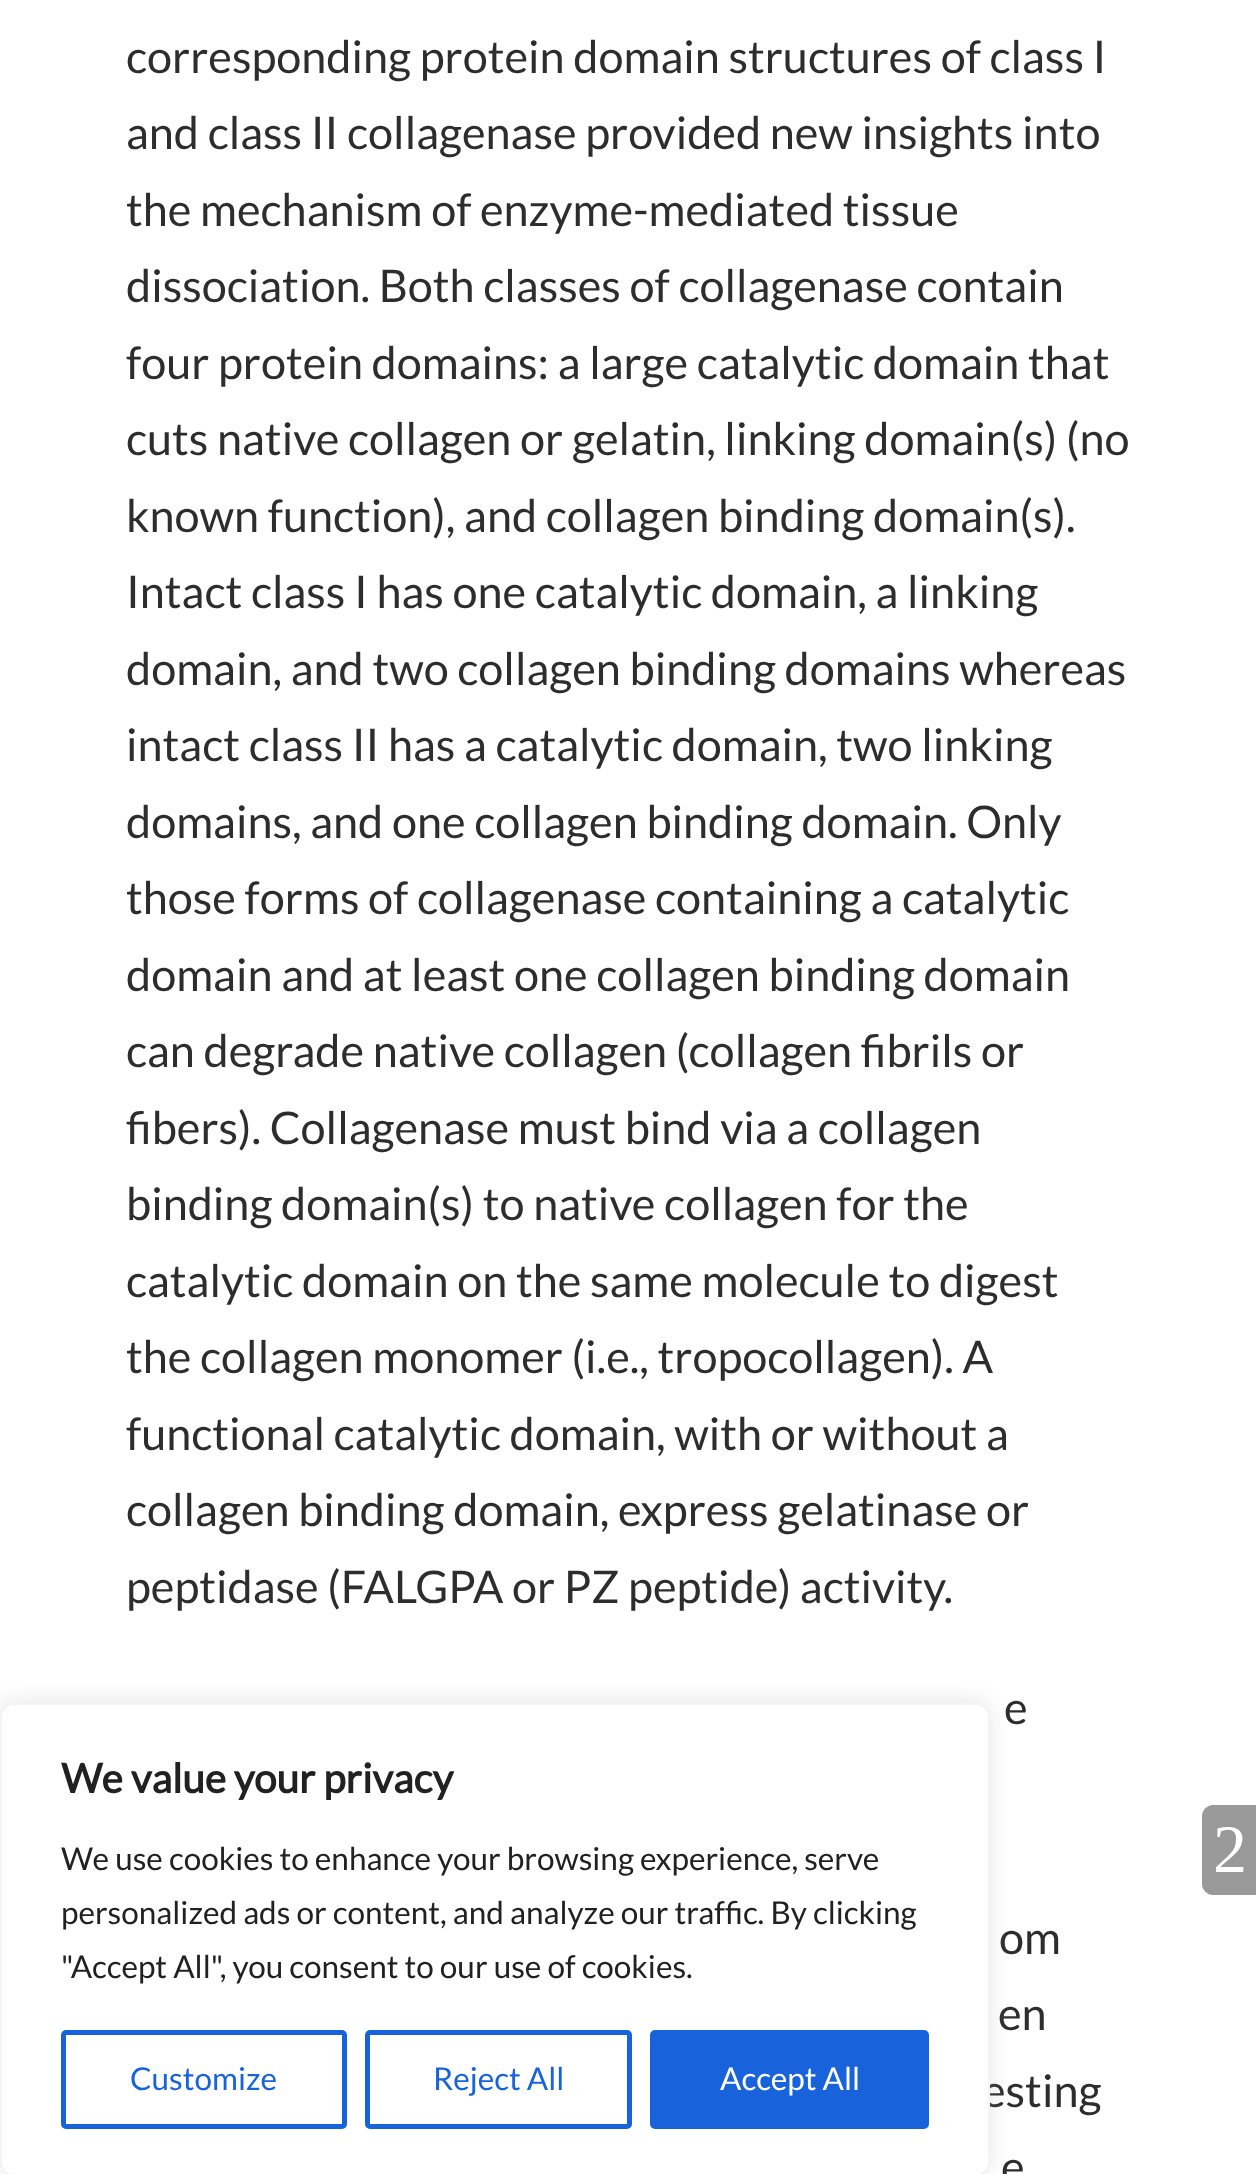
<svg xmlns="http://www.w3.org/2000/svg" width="1256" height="2174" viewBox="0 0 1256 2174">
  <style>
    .t1 { font: 45px Lato; fill: #2d2d2d; }
    .t2 { font: bold 40.5px Lato; fill: #212121; }
    .t3 { font: 31.5px Lato; fill: #212121; }
    .t4 { font: 31.5px Lato; fill: #1863dc; }
    .t5 { font: 31.5px Lato; fill: #fff; }
    .t6 { font: 68px Liberation Serif; fill: #fff; }
  </style>
  <rect width="100%" height="100%" fill="#fff"/>
  <text x="126" y="73" class="t1">corresponding protein domain structures of class I</text>
  <text x="126" y="149" class="t1">and class II collagenase provided new insights into</text>
  <text x="126" y="226" class="t1">the mechanism of enzyme-mediated tissue</text>
  <text x="126" y="302" class="t1">dissociation. Both classes of collagenase contain</text>
  <text x="126" y="379" class="t1">four protein domains: a large catalytic domain that</text>
  <text x="126" y="455" class="t1">cuts native collagen or gelatin, linking domain(s) (no</text>
  <text x="126" y="532" class="t1">known function), and collagen binding domain(s).</text>
  <text x="126" y="608" class="t1">Intact class I has one catalytic domain, a linking</text>
  <text x="126" y="685" class="t1">domain, and two collagen binding domains whereas</text>
  <text x="126" y="761" class="t1">intact class II has a catalytic domain, two linking</text>
  <text x="126" y="838" class="t1">domains, and one collagen binding domain. Only</text>
  <text x="126" y="914" class="t1">those forms of collagenase containing a catalytic</text>
  <text x="126" y="991" class="t1">domain and at least one collagen binding domain</text>
  <text x="126" y="1067" class="t1">can degrade native collagen (collagen fibrils or</text>
  <text x="126" y="1144" class="t1">fibers). Collagenase must bind via a collagen</text>
  <text x="126" y="1220" class="t1">binding domain(s) to native collagen for the</text>
  <text x="126" y="1297" class="t1">catalytic domain on the same molecule to digest</text>
  <text x="126" y="1373" class="t1">the collagen monomer (i.e., tropocollagen). A</text>
  <text x="126" y="1450" class="t1">functional catalytic domain, with or without a</text>
  <text x="126" y="1526" class="t1">collagen binding domain, express gelatinase or</text>
  <text x="126" y="1603" class="t1">peptidase (FALGPA or PZ peptide) activity.</text>
  <text x="1004" y="1724" class="t1">e</text>
  <text x="999" y="1954" class="t1">om</text>
  <text x="998" y="2030" class="t1">en</text>
  <text x="982" y="2107" class="t1">esting</text>
  <text x="1001" y="2183" class="t1">e</text>
  <rect x="0" y="1701" width="990" height="473" rx="14" fill="#acabab4d" filter="blur(11px)"/>
  <rect x="1" y="1704" width="988" height="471" rx="13" fill="#fff" stroke="#f4f4f4" stroke-width="2"/>
  <text x="61" y="1793" class="t2">We value your privacy</text>
  <text x="61" y="1870" class="t3">We use cookies to enhance your browsing experience, serve</text>
  <text x="61" y="1924" class="t3">personalized ads or content, and analyze our traffic. By clicking</text>
  <text x="61" y="1978" class="t3">"Accept All", you consent to our use of cookies.</text>
  <rect x="63.5" y="2032.5" width="281" height="94" rx="2.5" fill="none" stroke="#1863dc" stroke-width="5"/>
  <text x="130" y="2090" class="t4">Customize</text>
  <rect x="367.5" y="2032.5" width="262" height="94" rx="2.5" fill="none" stroke="#1863dc" stroke-width="5"/>
  <text x="433" y="2090" class="t4">Reject All</text>
  <rect x="652.5" y="2032.5" width="274" height="94" rx="2.5" fill="#1863dc" stroke="#1863dc" stroke-width="5"/>
  <text x="720" y="2090" class="t5">Accept All</text>
  <path d="M1213 1805H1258V1895H1213C1207 1895 1202 1890 1202 1884V1816C1202 1810 1207 1805 1213 1805Z" fill="#999"/>
  <text x="1213" y="1872" class="t6">2</text>
</svg>
